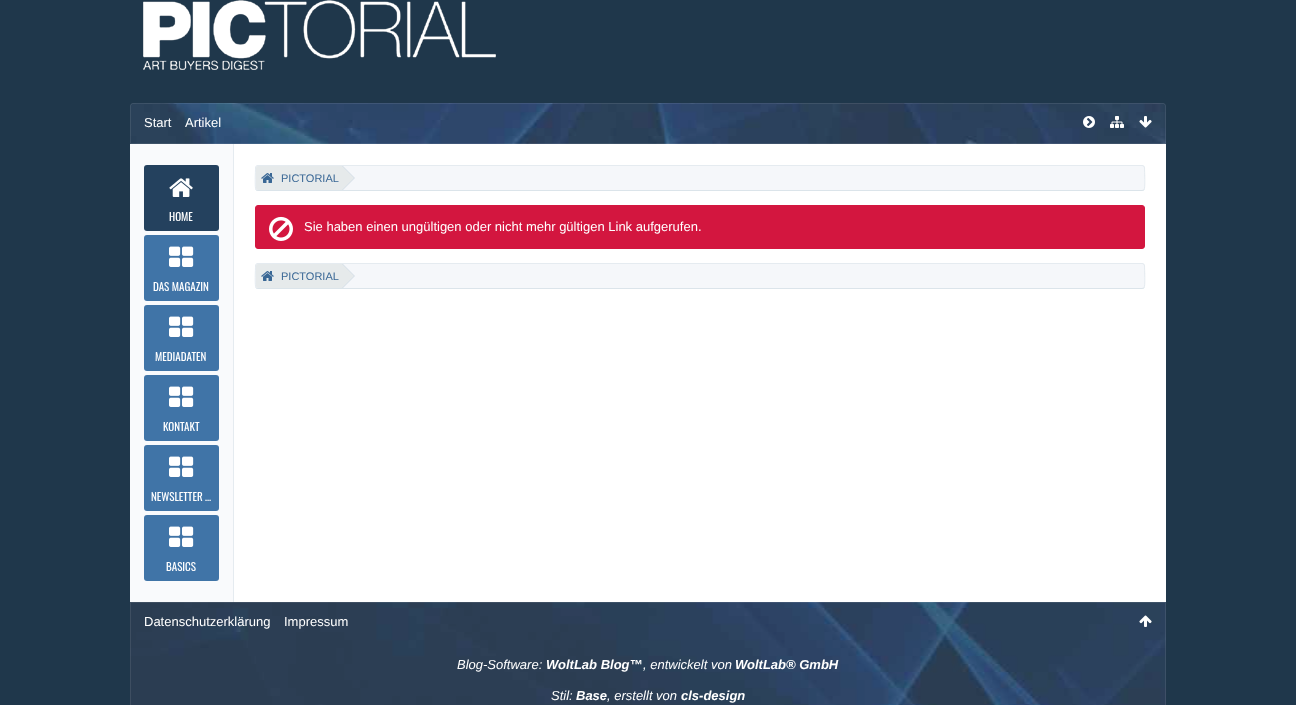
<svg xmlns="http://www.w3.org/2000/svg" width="1296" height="705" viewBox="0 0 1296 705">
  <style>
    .t1 { font: 13px Liberation Sans; fill: #fff; }
    .t2 { font: 11px Oswald; fill: #fff; }
    .t3 { font: 11px Liberation Sans; fill: #396795; }
    .t4 { font: italic 13px Liberation Sans; fill: #fff; }
    .t5 { font: italic bold 13px Liberation Sans; fill: #fff; }
  </style>
  <rect width="100%" height="100%" fill="#1f374b"/>
  <image x="143" y="0" width="353" height="70" href="images/1.png"/>
  <image x="130" y="103" width="1036" height="41" href="images/2.png"/>
  <path d="M133 103H1163C1164.5 103 1166 104.5 1166 106V144H130V106C130 104.5 131.5 103 133 103Z" fill="#ffffff1a"/>
  <path d="M133 103.5H1163C1164.5 103.5 1165.5 104.5 1165.5 106V143.5H130.5V106C130.5 104.5 131.5 103.5 133 103.5Z" fill="none" stroke="#ffffff17"/>
  <text x="144" y="127" class="t1">Start</text>
  <text x="185" y="127" class="t1">Artikel</text>
  <image x="1083" y="116" width="12" height="12" href="images/3.png"/>
  <image x="1110" y="116" width="14" height="12" href="images/4.png"/>
  <image x="1139" y="116" width="13" height="12" href="images/5.png"/>
  <rect x="234" y="144" width="932" height="458" fill="#fff"/>
  <rect x="130" y="144" width="103" height="458" fill="#f9fafc"/>
  <rect x="233" y="144" width="1" height="458" fill="#e5ebf0"/>
  <rect x="144" y="165" width="75" height="66" rx="3" fill="#24415e"/>
  <image x="169" y="178" width="24" height="19" href="images/6.png"/>
  <text x="169" y="221" class="t2">HOME</text>
  <rect x="144" y="235" width="75" height="66" rx="3" fill="#4074a7"/>
  <image x="169" y="246" width="25" height="21" href="images/7.png"/>
  <text x="153" y="291" class="t2">DAS MAGAZIN</text>
  <rect x="144" y="305" width="75" height="66" rx="3" fill="#4074a7"/>
  <image x="169" y="316" width="25" height="21" href="images/7.png"/>
  <text x="155" y="361" class="t2">MEDIADATEN</text>
  <rect x="144" y="375" width="75" height="66" rx="3" fill="#4074a7"/>
  <image x="169" y="386" width="25" height="21" href="images/7.png"/>
  <text x="163" y="431" class="t2">KONTAKT</text>
  <rect x="144" y="445" width="75" height="66" rx="3" fill="#4074a7"/>
  <image x="169" y="456" width="25" height="21" href="images/7.png"/>
  <text x="151" y="501" class="t2">NEWSLETTER …</text>
  <rect x="144" y="515" width="75" height="66" rx="3" fill="#4074a7"/>
  <image x="169" y="526" width="25" height="21" href="images/7.png"/>
  <text x="166" y="571" class="t2">BASICS</text>
  <rect x="255" y="165" width="890" height="26" rx="3" fill="#f5f7fa"/>
  <path d="M1144 190L1142 190.5H258L256 190" fill="none" stroke="#dbe4ea"/>
  <path d="M256 190C254.5 188 255.5 171.5 255.5 168C255.5 166.5 256.5 165.5 258 165.5H1142C1143.5 165.5 1144.5 166.5 1144.5 168C1144.5 171.5 1145.5 188 1144 190" fill="none" stroke="#e5ebf0"/>
  <path d="M258 166H340V190H258C257 190 256 189 256 188V168C256 167 257 166 258 166Z" fill="#e6eaeb"/>
  <image x="261" y="173" width="13" height="10" href="images/8.png"/>
  <text x="281" y="182" class="t3">PICTORIAL</text>
  <path d="M343 166L355 178L343 190H340V166Z" fill="#d5dfe7"/>
  <path d="M342 166L354 178L342 190H339V166Z" fill="#e6eaeb"/>
  <rect x="255.5" y="205.5" width="889" height="43" rx="2.5" fill="#d3163f" stroke="#d3163f"/>
  <image x="269" y="216" width="24" height="25" href="images/9.png"/>
  <text x="304" y="231" class="t1">Sie haben einen ungültigen oder nicht mehr gültigen Link aufgerufen.</text>
  <rect x="255" y="263" width="890" height="26" rx="3" fill="#f5f7fa"/>
  <path d="M1144 288L1142 288.5H258L256 288" fill="none" stroke="#dbe4ea"/>
  <path d="M256 288C254.5 286 255.5 269.5 255.5 266C255.5 264.5 256.5 263.5 258 263.5H1142C1143.5 263.5 1144.5 264.5 1144.5 266C1144.5 269.5 1145.5 286 1144 288" fill="none" stroke="#e5ebf0"/>
  <path d="M258 264H340V288H258C257 288 256 287 256 286V266C256 265 257 264 258 264Z" fill="#e6eaeb"/>
  <image x="261" y="271" width="13" height="10" href="images/8.png"/>
  <text x="281" y="280" class="t3">PICTORIAL</text>
  <path d="M343 264L355 276L343 288H340V264Z" fill="#d5dfe7"/>
  <path d="M342 264L354 276L342 288H339V264Z" fill="#e6eaeb"/>
  <image x="130" y="602" width="1036" height="103" href="images/10.png"/>
  <rect x="130.5" y="602.5" width="1035" height="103" fill="none" stroke="#ffffff17"/>
  <text x="144" y="626" class="t1">Datenschutzerklärung</text>
  <text x="284" y="626" class="t1">Impressum</text>
  <image x="1139" y="615" width="13" height="12" href="images/11.png"/>
  <text x="457" y="669" class="t4">Blog-Software:</text>
  <text x="546" y="669" class="t5">WoltLab Blog™</text>
  <text x="643" y="669" class="t4">, entwickelt von</text>
  <text x="735" y="669" class="t5">WoltLab® GmbH</text>
  <text x="551" y="700" class="t4">Stil:</text>
  <text x="576" y="700" class="t5">Base</text>
  <text x="607" y="700" class="t4">, erstellt von</text>
  <text x="681" y="700" class="t5">cls-design</text>
</svg>
